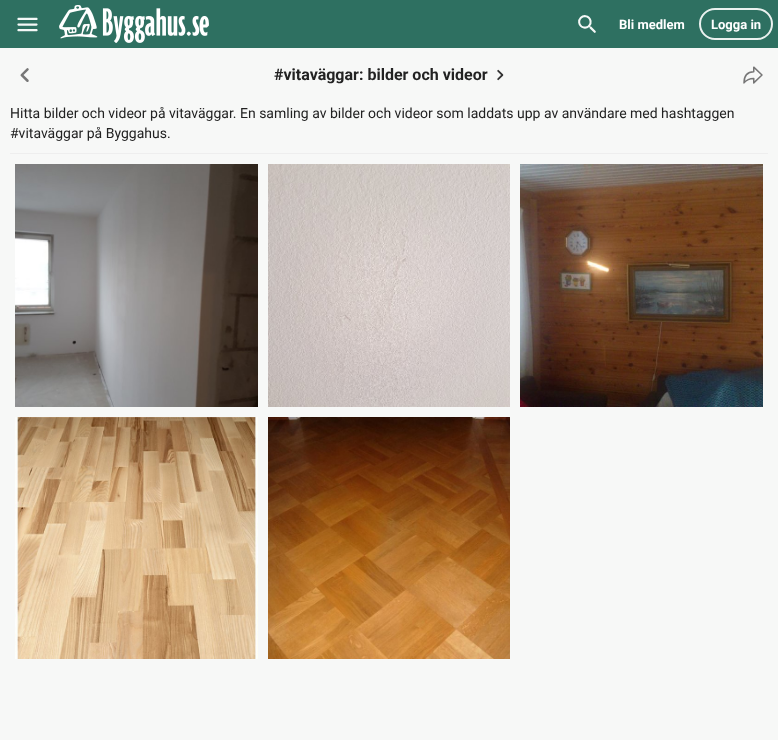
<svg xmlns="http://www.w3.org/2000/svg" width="778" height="740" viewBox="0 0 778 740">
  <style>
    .t1 { font: bold 13px Roboto; fill: #fff; }
    .t2 { font: bold 16px Roboto; fill: #222; }
    .t3 { font: 14px Roboto; fill: #222; }
  </style>
  <rect width="100%" height="100%" fill="#f7f8f7"/>
  <rect x="0" y="0" width="778" height="48" fill="#2e7061"/>
  <image x="17" y="17" width="21" height="15" href="images/1.png"/>
  <image x="59" y="5" width="150" height="38" href="images/2.png"/>
  <image x="578" y="15" width="18" height="18" href="images/3.png"/>
  <text x="619" y="29" class="t1">Bli medlem</text>
  <rect x="700" y="9" width="72" height="30" rx="15" fill="none" stroke="#eaf1ef" stroke-width="2"/>
  <text x="711" y="29" class="t1">Logga in</text>
  <image x="20" y="68" width="9" height="14" href="images/4.png"/>
  <text x="274" y="80" class="t2">#vitaväggar: bilder och videor</text>
  <image x="497" y="69" width="7" height="12" href="images/5.png"/>
  <image x="743" y="66" width="20" height="18" href="images/6.png"/>
  <rect x="10" y="153" width="758" height="1" fill="#eee"/>
  <text x="10" y="118" class="t3">Hitta bilder och videor på vitaväggar. En samling av bilder och videor som laddats upp av användare med hashtaggen</text>
  <text x="10" y="138" class="t3">#vitaväggar på Byggahus.</text>
  <image x="15" y="164" width="243" height="243" href="images/7.png"/>
  <image x="268" y="164" width="242" height="243" href="images/8.png"/>
  <image x="520" y="164" width="243" height="243" href="images/9.png"/>
  <image x="15" y="417" width="243" height="242" href="images/10.png"/>
  <image x="268" y="417" width="242" height="242" href="images/11.png"/>
</svg>
